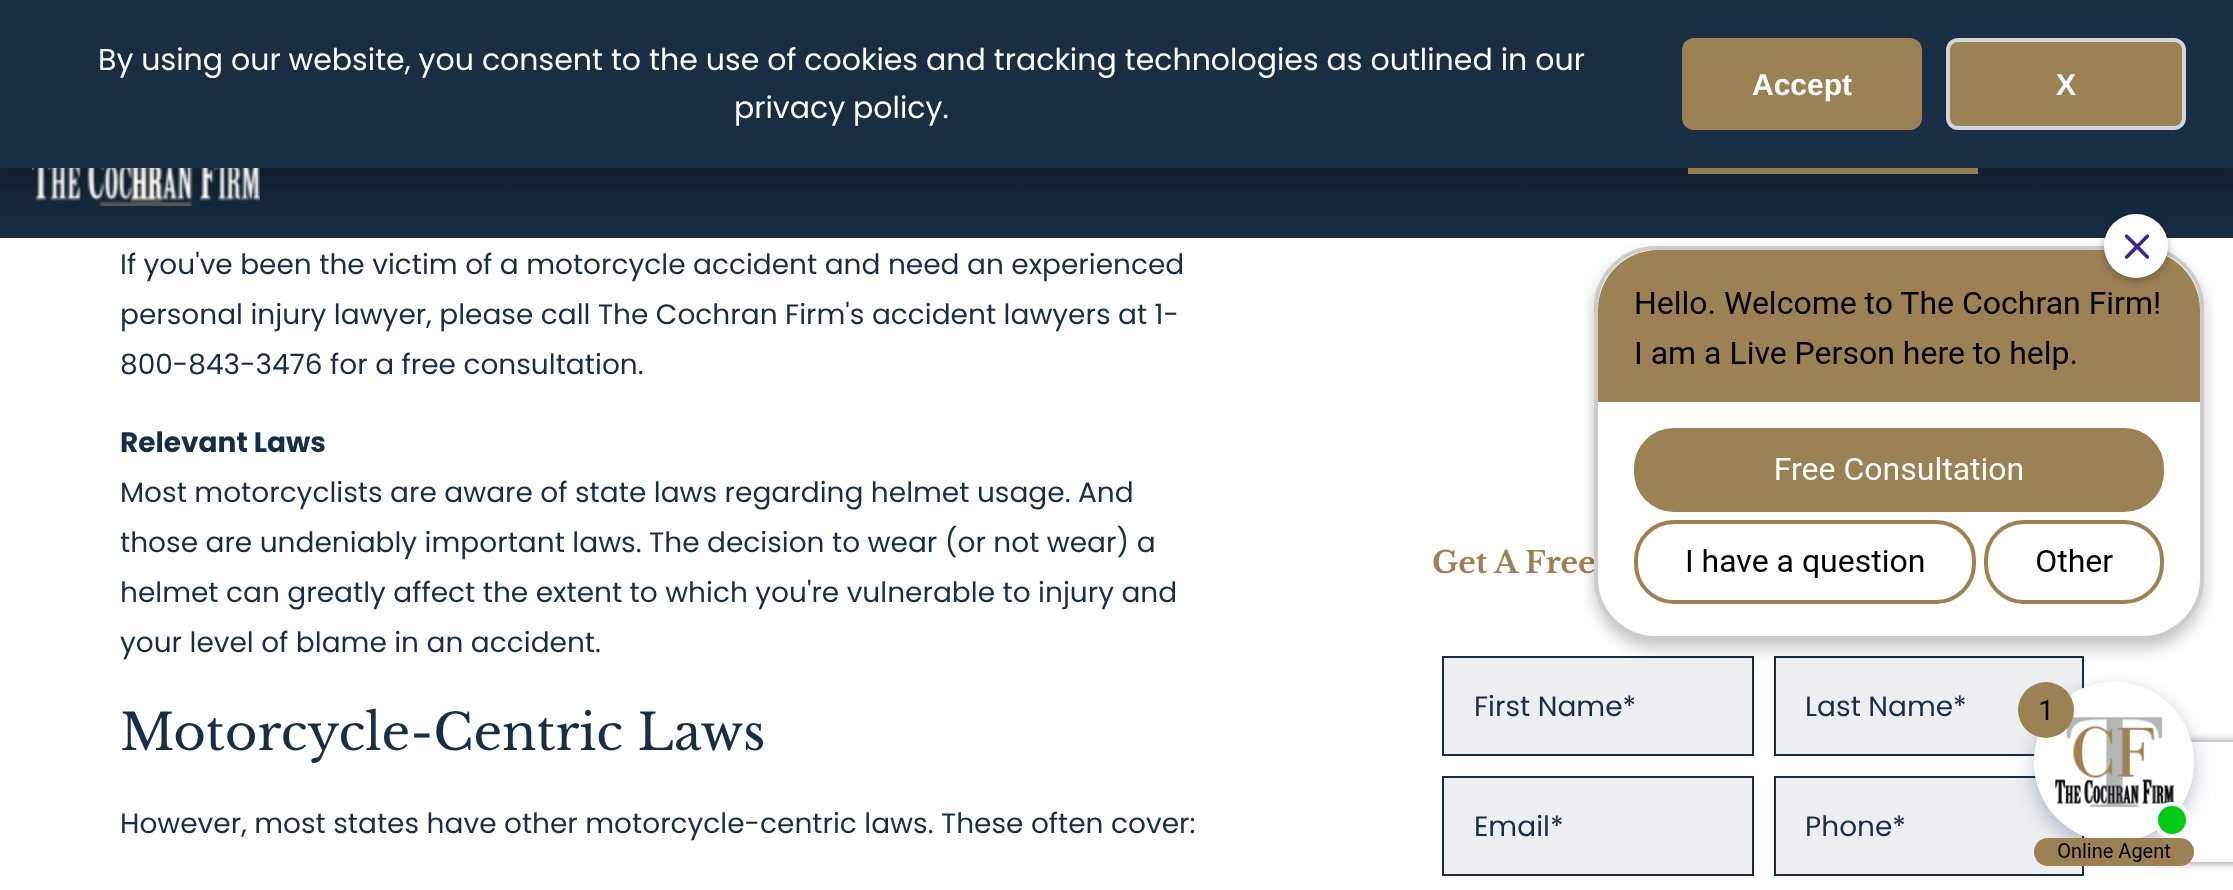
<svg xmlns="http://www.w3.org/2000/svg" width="2233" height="890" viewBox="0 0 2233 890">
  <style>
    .t1 { font: 30px Poppins; fill: #fff; }
    .t2 { font: bold 30px Liberation Sans; fill: #fff; }
    .t3 { font: bold 30px Libre Baskerville; fill: #9b8154; }
    .t4 { font: 28px Poppins; fill: #192d43; }
    .t5 { font: bold 28px Poppins; fill: #192d43; }
    .t6 { font: 50px Libre Baskerville; fill: #192d43; }
  </style>
  <defs>
    <linearGradient id="g1" gradientUnits="userSpaceOnUse" x1="1117" y1="0" x2="1117" y2="238"><stop offset="0" stop-color="#010101"/><stop offset="1" stop-color="#192d43"/></linearGradient>
    <clipPath id="clip1"><path d="M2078 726H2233V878H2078ZM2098 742H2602C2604 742 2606 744 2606 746V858C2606 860 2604 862 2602 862H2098C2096 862 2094 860 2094 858V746C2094 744 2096 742 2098 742Z" clip-rule="evenodd"/></clipPath>
  </defs>
  <rect width="100%" height="100%" fill="#fff"/>
  <rect x="0" y="168" width="2233" height="70" fill="url(#g1)"/>
  <image x="32" y="168" width="228" height="38" href="images/1.png"/>
  <rect x="1688" y="168" width="290" height="6" fill="#9b8154"/>
  <rect x="0" y="4" width="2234" height="168" fill="#00000014" filter="blur(10px)"/>
  <rect x="0" y="0" width="2233" height="168" fill="#192d43"/>
  <text x="98" y="70" class="t1">By using our website, you consent to the use of cookies and tracking technologies as outlined in our</text>
  <text x="734" y="118" class="t1">privacy policy.</text>
  <rect x="1682" y="38" width="240" height="92" rx="12" fill="#9b8154"/>
  <text x="1752" y="95" class="t2">Accept</text>
  <rect x="1948" y="40" width="236" height="88" rx="10" fill="#9b8154" stroke="#d1d5db" stroke-width="4"/>
  <text x="2056" y="95" class="t2">X</text>
  <g clip-path="url(#clip1)">
    <rect x="2094" y="742" width="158" height="120" rx="4" fill="#808080" filter="blur(5px)"/>
  </g>
  <rect x="2084" y="732" width="70" height="140" fill="#fff"/>
  <text x="1432" y="573" class="t3">Get A Free</text>
  <rect x="1443" y="657" width="310" height="98" fill="#edeef0" stroke="#192d43" stroke-width="2"/>
  <text x="1474" y="716" class="t4">First Name*</text>
  <rect x="1775" y="657" width="308" height="98" fill="#edeef0" stroke="#192d43" stroke-width="2"/>
  <text x="1805" y="716" class="t4">Last Name*</text>
  <rect x="1443" y="777" width="310" height="98" fill="#edeef0" stroke="#192d43" stroke-width="2"/>
  <rect x="1775" y="777" width="308" height="98" fill="#edeef0" stroke="#192d43" stroke-width="2"/>
  <text x="1805" y="836" class="t4">Phone*</text>
  <image x="1584" y="213" width="630" height="653" href="images/2.png"/>
  <text x="120" y="274" class="t4">If you've been the victim of a motorcycle accident and need an experienced</text>
  <text x="120" y="324" class="t4">personal injury lawyer, please call The Cochran Firm's accident lawyers at 1-</text>
  <text x="120" y="374" class="t4">800-843-3476 for a free consultation.</text>
  <text x="120" y="452" class="t5">Relevant Laws</text>
  <text x="120" y="502" class="t4">Most motorcyclists are aware of state laws regarding helmet usage. And</text>
  <text x="120" y="552" class="t4">those are undeniably important laws. The decision to wear (or not wear) a</text>
  <text x="120" y="602" class="t4">helmet can greatly affect the extent to which you're vulnerable to injury and</text>
  <text x="120" y="652" class="t4">your level of blame in an accident.</text>
  <text x="120" y="750" class="t6">Motorcycle-Centric Laws</text>
  <text x="120" y="833" class="t4">However, most states have other motorcycle-centric laws. These often cover:</text>
  <text x="1474" y="836" class="t4">Email*</text>
</svg>
